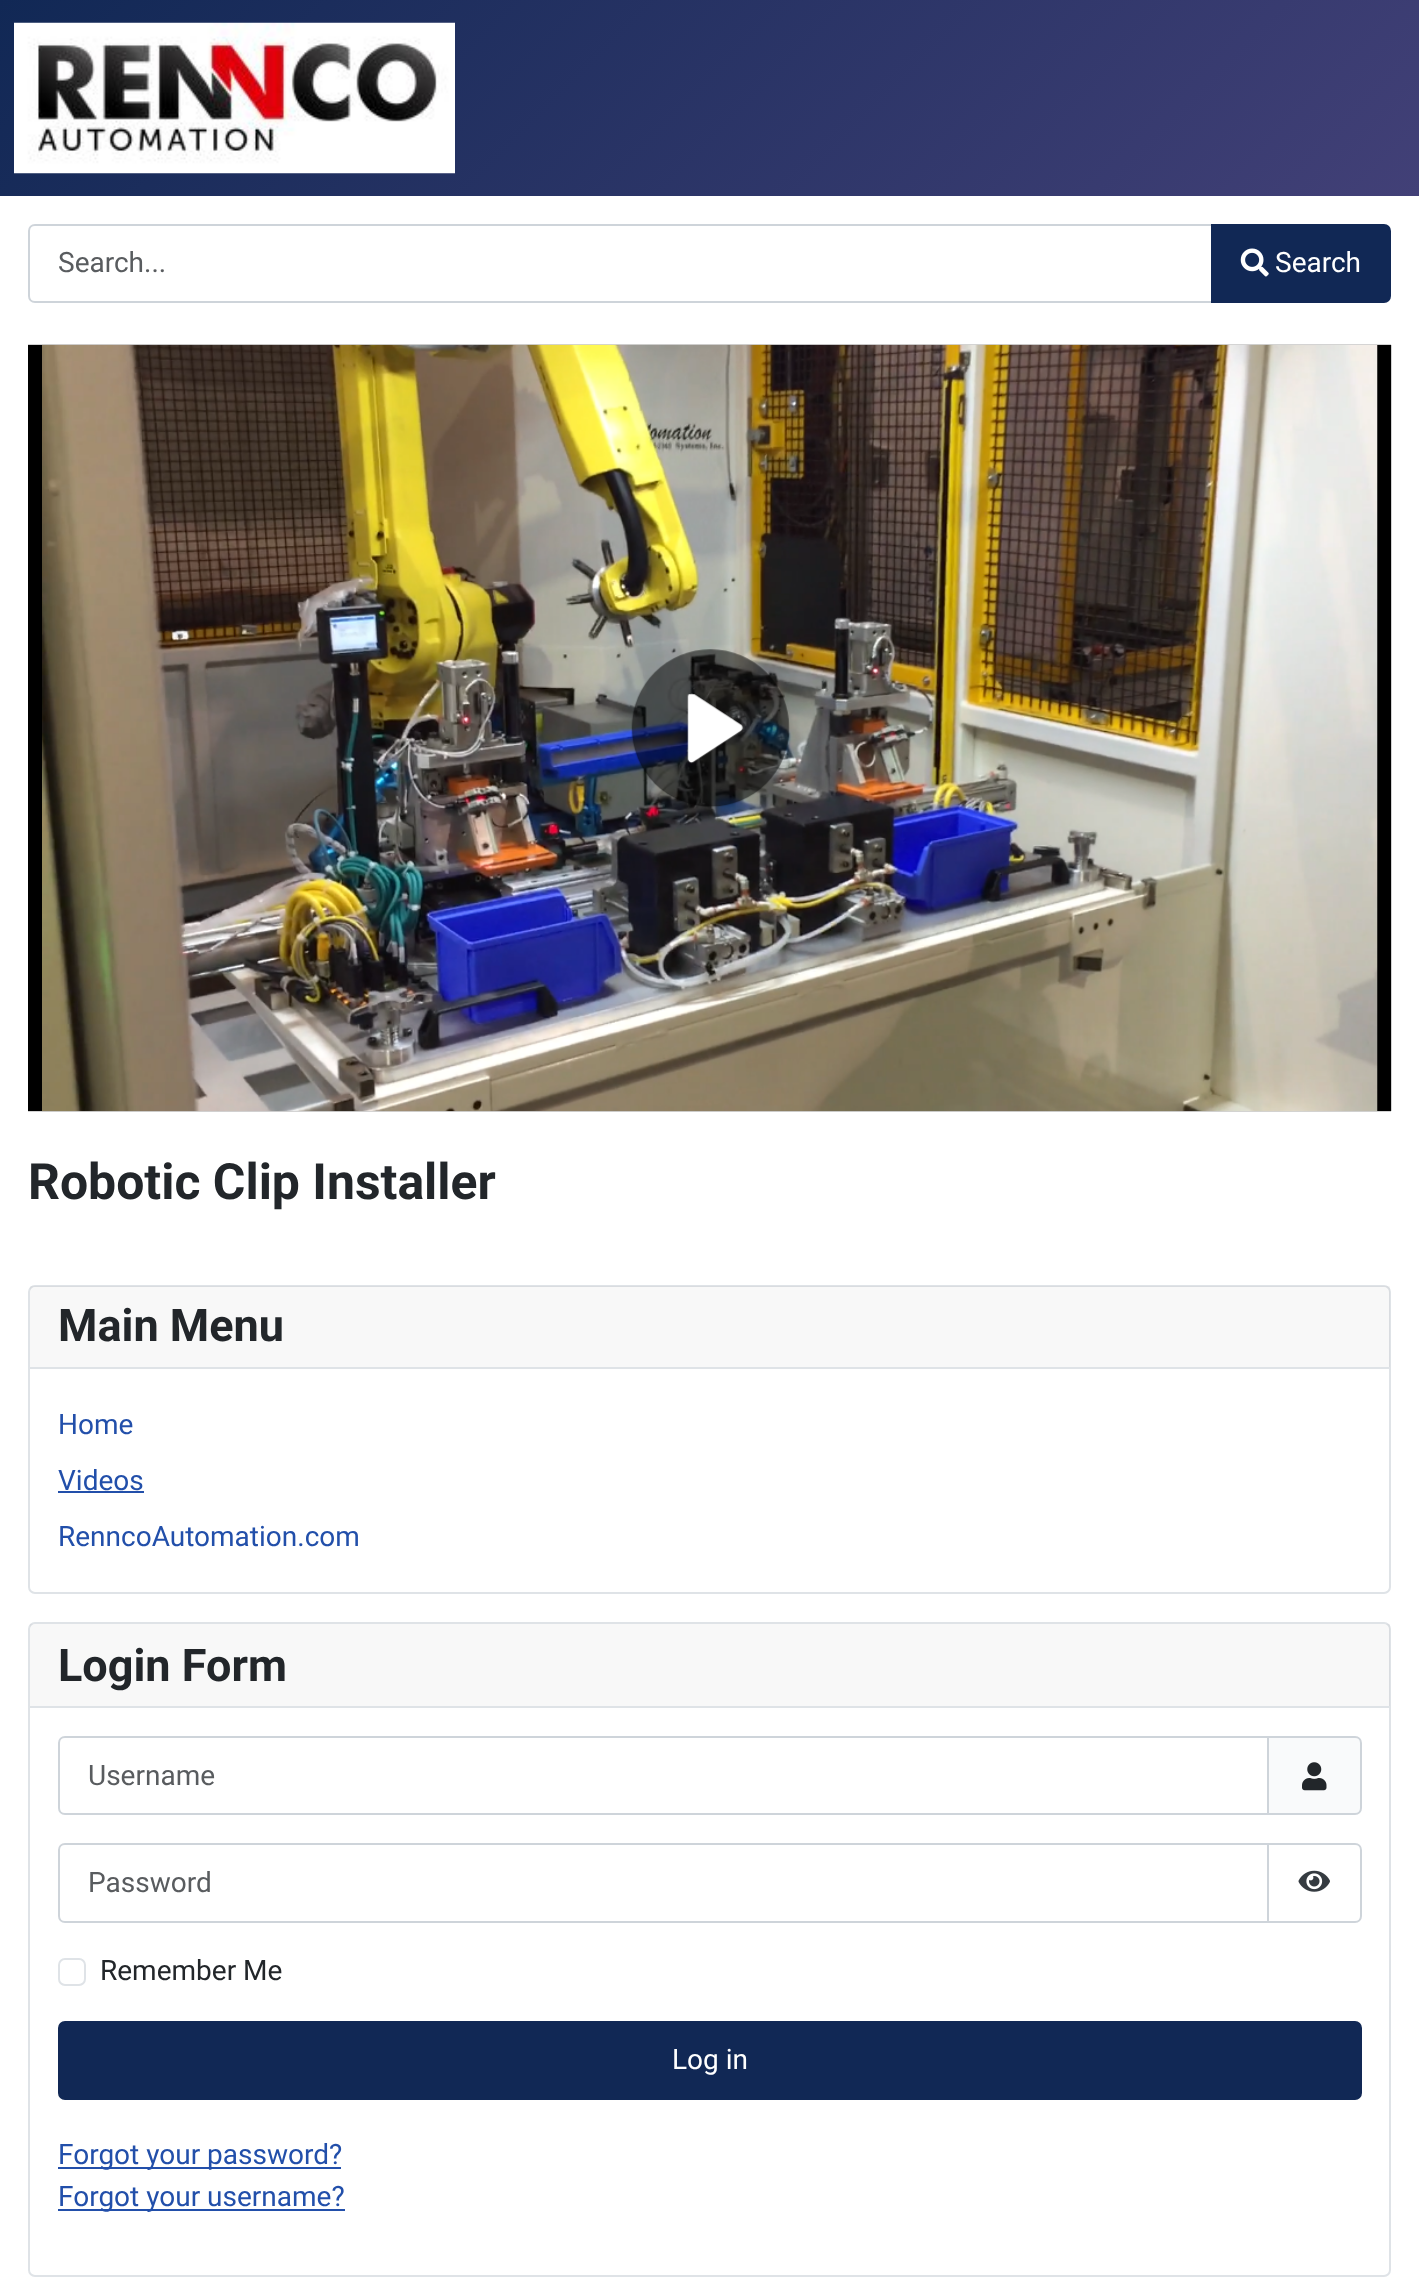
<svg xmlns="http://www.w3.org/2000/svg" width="1419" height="2294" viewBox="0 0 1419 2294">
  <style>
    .t1 { font: 28px Roboto; fill: #595c5f; }
    .t2 { font: 28px Roboto; fill: #fff; }
    .t3 { font: bold 49.9px Roboto; fill: #22262a; }
    .t4 { font: bold 45px Roboto; fill: #22262a; }
    .t5 { font: 28px Roboto; fill: #224faa; }
    .t6 { font: 28px Roboto; fill: #22262a; }
  </style>
  <defs>
    <linearGradient id="g1" gradientUnits="userSpaceOnUse" x1="306" y1="-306" x2="1113" y2="502"><stop offset="0" stop-color="#112855"/><stop offset="1" stop-color="#424077"/></linearGradient>
  </defs>
  <rect width="100%" height="100%" fill="#fff"/>
  <rect x="0" y="0" width="1419" height="196" fill="url(#g1)"/>
  <image x="14" y="22" width="441" height="152" href="images/1.png"/>
  <path d="M35 225H1212V302H35C31.5 302 29 299.5 29 296V231C29 227.5 31.5 225 35 225Z" fill="none" stroke="#ced4da" stroke-width="2"/>
  <text x="58" y="272" class="t1">Search...</text>
  <path d="M1212 225H1384C1387.5 225 1390 227.5 1390 231V296C1390 299.5 1387.5 302 1384 302H1212Z" fill="#112855" stroke="#112855" stroke-width="2"/>
  <image x="1240" y="248" width="29" height="29" href="images/2.png"/>
  <text x="1275" y="272" class="t2">Search</text>
  <image x="28" y="344" width="1364" height="768" href="images/3.png"/>
  <text x="28" y="1199" class="t3">Robotic Clip Installer</text>
  <rect x="29" y="1286" width="1361" height="307" rx="6" fill="none" stroke="#dfe3e7" stroke-width="2"/>
  <rect x="30" y="1286" width="1360" height="81" fill="#22262a08"/>
  <rect x="30" y="1367" width="1360" height="2" fill="#dfe3e7"/>
  <text x="58" y="1341" class="t4">Main Menu</text>
  <text x="58" y="1434" class="t5">Home</text>
  <text x="58" y="1490" class="t5">Videos</text>
  <rect x="58" y="1491" width="86" height="2" fill="#224faa"/>
  <text x="58" y="1546" class="t5">RenncoAutomation.com</text>
  <rect x="29" y="1623" width="1361" height="653" rx="6" fill="none" stroke="#dfe3e7" stroke-width="2"/>
  <rect x="30" y="1624" width="1360" height="82" fill="#22262a08"/>
  <rect x="30" y="1706" width="1360" height="2" fill="#dfe3e7"/>
  <text x="58" y="1681" class="t4">Login Form</text>
  <path d="M1268 1737H1355C1358.5 1737 1361 1739.5 1361 1743V1808C1361 1811.5 1358.5 1814 1355 1814H1268Z" fill="#f9fafb" stroke="#ced4da" stroke-width="2"/>
  <path d="M65 1737H1268V1814H65C61.5 1814 59 1811.5 59 1808V1743C59 1739.5 61.5 1737 65 1737Z" fill="none" stroke="#ced4da" stroke-width="2"/>
  <text x="88" y="1785" class="t1">Username</text>
  <image x="1302" y="1762" width="25" height="29" href="images/4.png"/>
  <path d="M65 1844H1268V1922H65C61.5 1922 59 1919.5 59 1916V1850C59 1846.5 61.5 1844 65 1844Z" fill="none" stroke="#ced4da" stroke-width="2"/>
  <text x="88" y="1892" class="t1">Password</text>
  <path d="M1268 1844H1355C1358.5 1844 1361 1846.5 1361 1850V1916C1361 1919.5 1358.5 1922 1355 1922H1268Z" fill="#fff" stroke="#ced4da" stroke-width="2"/>
  <image x="1298" y="1870" width="32" height="22" href="images/5.png"/>
  <rect x="59" y="1959" width="26" height="26" rx="6" fill="none" stroke="#dfe3e7" stroke-width="2"/>
  <text x="100" y="1980" class="t6">Remember Me</text>
  <rect x="59" y="2022" width="1302" height="77" rx="6" fill="#112855" stroke="#112855" stroke-width="2"/>
  <text x="672" y="2069" class="t2">Log in</text>
  <rect x="58" y="2167" width="283" height="2" fill="#224faa"/>
  <text x="58" y="2164" class="t5">Forgot your password?</text>
  <rect x="58" y="2209" width="287" height="2" fill="#224faa"/>
  <text x="58" y="2206" class="t5">Forgot your username?</text>
</svg>
